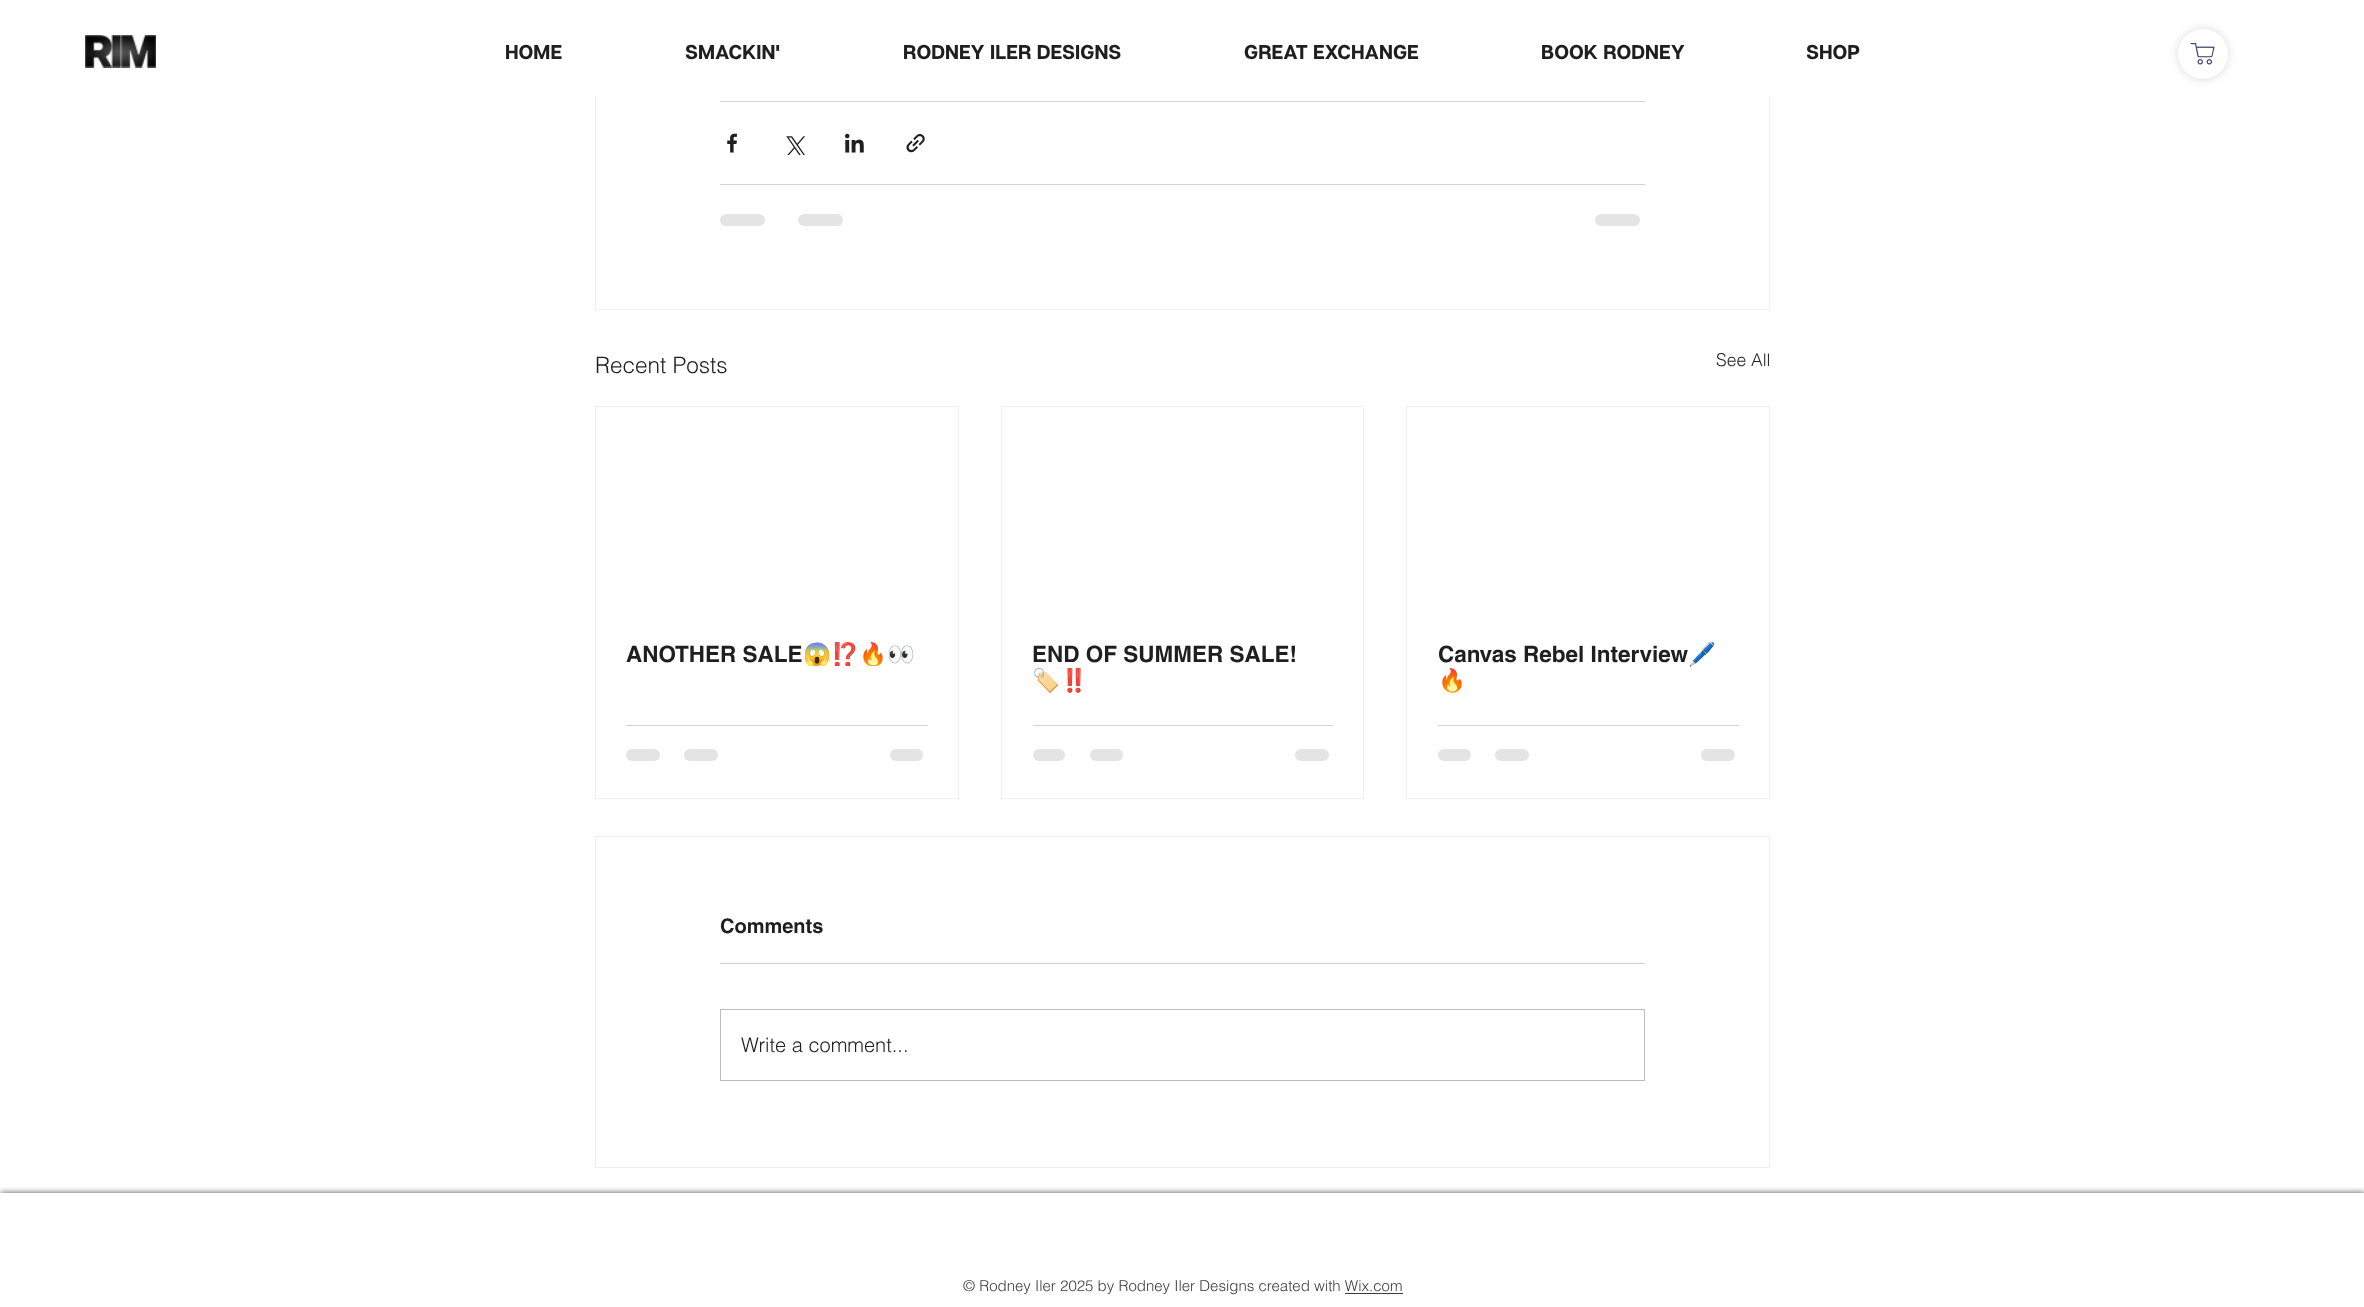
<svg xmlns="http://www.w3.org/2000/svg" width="2364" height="1307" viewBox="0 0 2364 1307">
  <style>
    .t1 { font: bold 20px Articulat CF; fill: #1f1f1f; }
    .t2 { font: 300 22.5px helvetica; fill: #1f1f1f; }
    .t3 { font: 300 17.5px helvetica; fill: #1f1f1f; }
    .t4 { font: bold 22.5px helvetica; fill: #1f1f1f; }
    .t5 { font: 22.5px Noto Color Emoji; fill: #1f1f1f; }
    .t6 { font: bold 20px helvetica; fill: #1f1f1f; }
    .t7 { font: 300 20px helvetica; fill: #1f1f1f; }
    .t8 { font: 300 15px helvetica; fill: #3b3b3b; }
  </style>
  <defs>
    <clipPath id="clip1"><rect x="626" y="640" width="302" height="26"/></clipPath>
    <clipPath id="clip2"><rect x="1033" y="640" width="300" height="53"/></clipPath>
    <clipPath id="clip3"><rect x="1438" y="640" width="301" height="53"/></clipPath>
    <clipPath id="clip4"><rect x="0" y="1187" width="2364" height="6"/></clipPath>
  </defs>
  <rect width="100%" height="100%" fill="#fff"/>
  <rect x="595.5" y="-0.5" width="1174" height="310" fill="none" stroke="#efefef"/>
  <rect x="595" y="0" width="1175" height="96" fill="#fff"/>
  <image x="85" y="35" width="71" height="33" href="images/1.png"/>
  <text x="505" y="59" class="t1">HOME</text>
  <text x="685" y="59" class="t1">SMACKIN'</text>
  <text x="903" y="59" class="t1">RODNEY ILER DESIGNS</text>
  <text x="1244" y="59" class="t1">GREAT EXCHANGE</text>
  <text x="1541" y="59" class="t1">BOOK RODNEY</text>
  <text x="1806" y="59" class="t1">SHOP</text>
  <rect x="2178" y="29" width="50" height="50" rx="25" fill="#00000026" filter="blur(5px)"/>
  <circle cx="2203" cy="54" r="25" fill="#fff"/>
  <image x="2190" y="43" width="25" height="22" href="images/2.png"/>
  <rect x="720" y="101" width="925" height="1" fill="#d2d2d2"/>
  <image x="727" y="133" width="10" height="20" href="images/3.png"/>
  <image x="786" y="136" width="19" height="19" href="images/4.png"/>
  <image x="845" y="133" width="19" height="20" href="images/5.png"/>
  <image x="906" y="134" width="19" height="19" href="images/6.png"/>
  <rect x="720" y="184" width="925" height="1" fill="#d2d2d2"/>
  <rect x="720" y="214" width="45" height="12" rx="6" fill="#e4e4e4"/>
  <rect x="798" y="214" width="45" height="12" rx="6" fill="#e4e4e4"/>
  <rect x="1595" y="214" width="45" height="12" rx="6" fill="#e4e4e4"/>
  <text x="595" y="373" class="t2">Recent Posts</text>
  <text x="1716" y="366" class="t3">See All</text>
  <rect x="595.5" y="406.5" width="363" height="392" fill="none" stroke="#efefef"/>
  <text x="626" y="662" class="t4">ANOTHER SALE</text>
  <g clip-path="url(#clip1)">
    <text x="803" y="662" class="t5">😱⁉️🔥👀</text>
  </g>
  <rect x="626" y="725" width="302" height="1" fill="#d2d2d2"/>
  <rect x="626" y="749" width="34" height="12" rx="6" fill="#e4e4e4"/>
  <rect x="684" y="749" width="34" height="12" rx="6" fill="#e4e4e4"/>
  <rect x="890" y="749" width="33" height="12" rx="6" fill="#e4e4e4"/>
  <rect x="1001.5" y="406.5" width="362" height="392" fill="none" stroke="#efefef"/>
  <text x="1032" y="662" class="t4">END OF SUMMER SALE!</text>
  <g clip-path="url(#clip2)">
    <text x="1032" y="688" class="t5">🏷️‼️</text>
  </g>
  <rect x="1033" y="725" width="300" height="1" fill="#d2d2d2"/>
  <rect x="1033" y="749" width="32" height="12" rx="6" fill="#e4e4e4"/>
  <rect x="1090" y="749" width="33" height="12" rx="6" fill="#e4e4e4"/>
  <rect x="1295" y="749" width="34" height="12" rx="6" fill="#e4e4e4"/>
  <rect x="1406.5" y="406.5" width="363" height="392" fill="none" stroke="#efefef"/>
  <text x="1438" y="662" class="t4">Canvas Rebel Interview</text>
  <text x="1688" y="662" class="t5">🖊</text>
  <g clip-path="url(#clip3)">
    <text x="1438" y="688" class="t5">🔥</text>
  </g>
  <rect x="1438" y="725" width="301" height="1" fill="#d2d2d2"/>
  <rect x="1438" y="749" width="33" height="12" rx="6" fill="#e4e4e4"/>
  <rect x="1495" y="749" width="34" height="12" rx="6" fill="#e4e4e4"/>
  <rect x="1701" y="749" width="34" height="12" rx="6" fill="#e4e4e4"/>
  <rect x="595.5" y="836.5" width="1174" height="331" fill="none" stroke="#efefef"/>
  <text x="720" y="933" class="t6">Comments</text>
  <rect x="720" y="963" width="925" height="1" fill="#d2d2d2"/>
  <rect x="720.5" y="1009.5" width="924" height="71" fill="none" stroke="#bcbcbc"/>
  <text x="741" y="1052" class="t7">Write a comment...</text>
  <g clip-path="url(#clip4)">
    <rect x="0" y="1193" width="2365" height="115" fill="#000000b3" filter="blur(3px)"/>
  </g>
  <text x="963" y="1291" class="t8">© Rodney Iler 2025 by Rodney Iler Designs created with Wix.com</text>
  <rect x="1345" y="1293" width="58" height="1" fill="#3b3b3b"/>
</svg>
